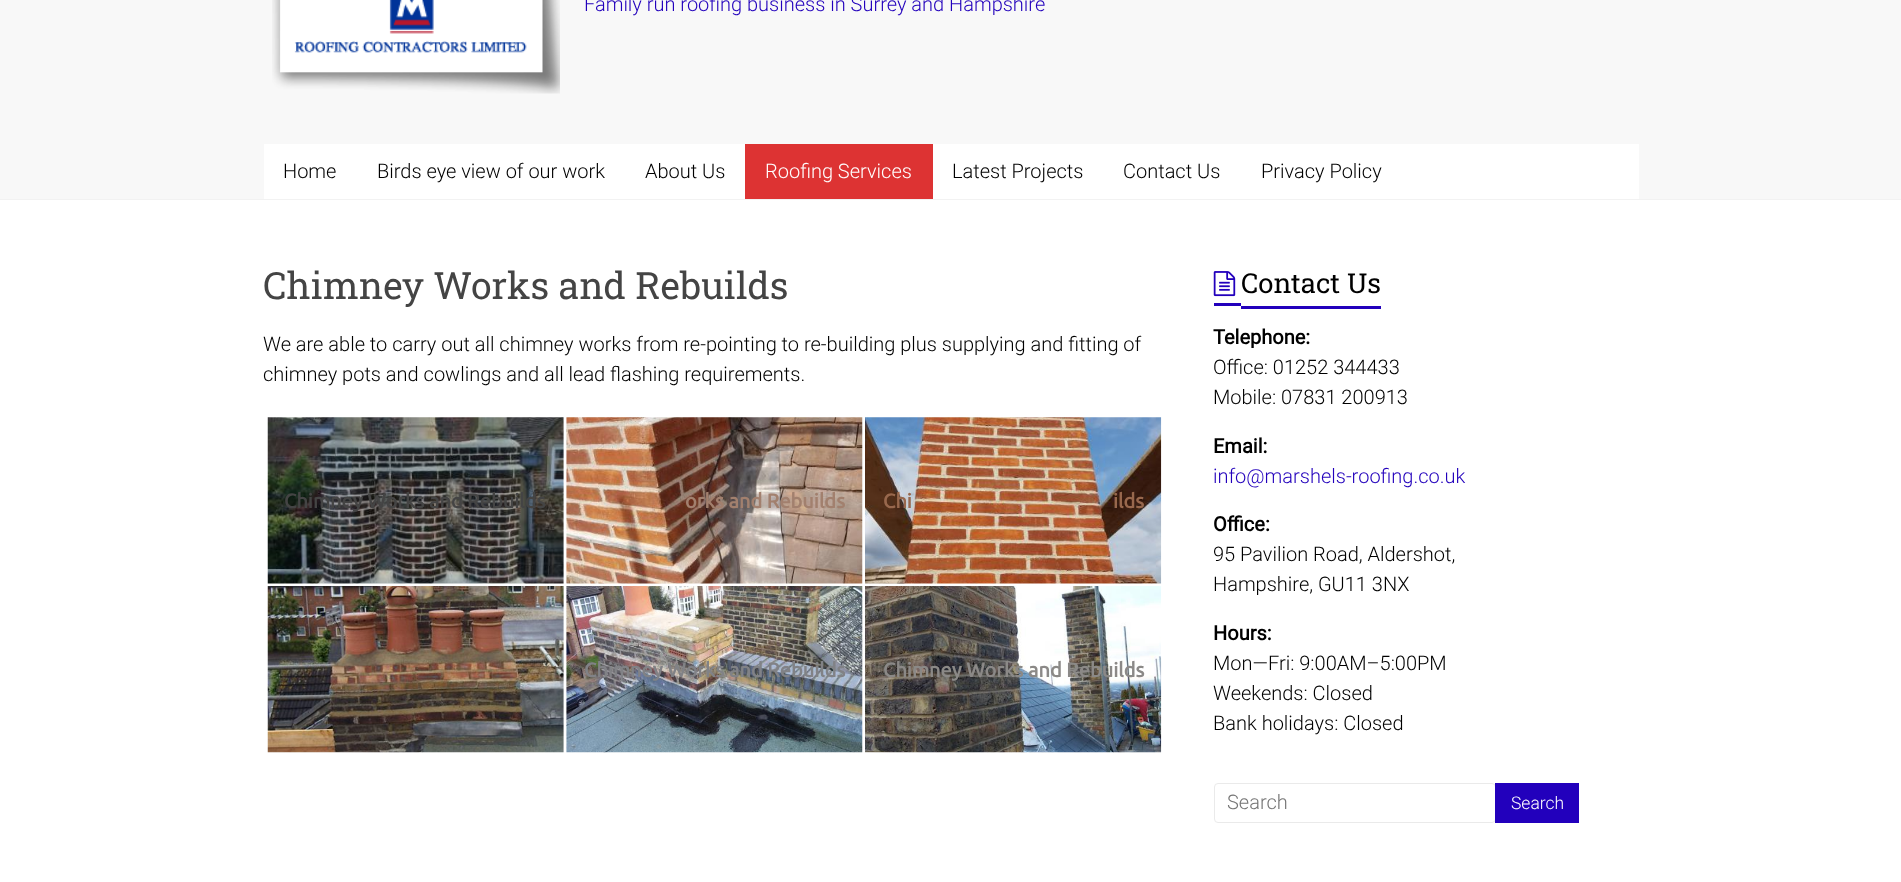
<svg xmlns="http://www.w3.org/2000/svg" width="1901" height="882" viewBox="0 0 1901 882">
  <style>
    .t1 { font: 300 20px Roboto; fill: #2200bc; }
    .t2 { font: 300 20px Roboto; fill: #000; }
    .t3 { font: 300 20px Roboto; fill: #fff; }
    .t4 { font: 37.5px Roboto Slab; fill: #444; }
    .t5 { font: bold 20px Ubuntu; fill: #444; }
    .t6 { font: bold 20px Ubuntu; fill: #a2806e; }
    .t7 { font: bold 20px Ubuntu; fill: #98684d; }
    .t8 { font: bold 20px Ubuntu; fill: #818286; }
    .t9 { font: bold 20px Ubuntu; fill: #8b8987; }
    .t10 { font: 27.5px Roboto Slab; fill: #000; }
    .t11 { font: bold 20px Roboto; fill: #000; }
    .t12 { font: 300 20px Roboto; fill: #757575; }
    .t13 { font: 300 17.5px Roboto; fill: #fff; }
  </style>
  <rect width="100%" height="100%" fill="#fff"/>
  <rect x="0" y="0" width="1901" height="199" fill="#f8f8f8"/>
  <rect x="0" y="199" width="1901" height="1" fill="#f2f2f2"/>
  <image x="272" y="0" width="288" height="94" href="images/1.png"/>
  <text x="584" y="11" class="t1">Family run roofing business in Surrey and Hampshire</text>
  <rect x="264" y="144" width="1375" height="55" fill="#fff"/>
  <text x="283" y="178" class="t2">Home</text>
  <text x="377" y="178" class="t2">Birds eye view of our work</text>
  <text x="645" y="178" class="t2">About Us</text>
  <rect x="745" y="144" width="188" height="55" fill="#d33"/>
  <text x="765" y="178" class="t3">Roofing Services</text>
  <text x="952" y="178" class="t2">Latest Projects</text>
  <text x="1123" y="178" class="t2">Contact Us</text>
  <text x="1261" y="178" class="t2">Privacy Policy</text>
  <text x="263" y="299" class="t4">Chimney Works and Rebuilds</text>
  <text x="263" y="351" class="t2">We are able to carry out all chimney works from re-pointing to re-building plus supplying and fitting of</text>
  <text x="263" y="381" class="t2">chimney pots and cowlings and all lead flashing requirements.</text>
  <image x="267" y="417" width="297" height="167" href="images/2.png"/>
  <text x="284" y="508" class="t5">Chimney Works and Rebuilds</text>
  <image x="566" y="417" width="297" height="167" href="images/3.png"/>
  <text x="685" y="508" class="t6">orks and Rebuilds</text>
  <image x="865" y="417" width="297" height="167" href="images/4.png"/>
  <text x="883" y="508" class="t7">Chi</text>
  <text x="1113" y="508" class="t7">ilds</text>
  <image x="267" y="586" width="297" height="167" href="images/5.png"/>
  <image x="566" y="586" width="297" height="167" href="images/6.png"/>
  <text x="584" y="677" class="t8">Chimney Works and Rebuilds</text>
  <image x="865" y="586" width="297" height="167" href="images/7.png"/>
  <text x="883" y="677" class="t9">Chimney Works and Rebuilds</text>
  <image x="1213" y="271" width="23" height="26" href="images/8.png"/>
  <text x="1241" y="293" class="t10">Contact Us</text>
  <rect x="1214" y="303" width="27" height="3" fill="#2200bc"/>
  <rect x="1241" y="306" width="140" height="3" fill="#2200bc"/>
  <text x="1213" y="344" class="t11">Telephone:</text>
  <text x="1213" y="374" class="t2">Office: 01252 344433</text>
  <text x="1213" y="404" class="t2">Mobile: 07831 200913</text>
  <text x="1213" y="453" class="t11">Email:</text>
  <text x="1213" y="483" class="t1">info@marshels-roofing.co.uk</text>
  <text x="1213" y="531" class="t11">Office:</text>
  <text x="1213" y="561" class="t2">95 Pavilion Road, Aldershot,</text>
  <text x="1213" y="591" class="t2">Hampshire, GU11 3NX</text>
  <text x="1213" y="640" class="t11">Hours:</text>
  <text x="1213" y="670" class="t2">Mon—Fri: 9:00AM–5:00PM</text>
  <text x="1213" y="700" class="t2">Weekends: Closed</text>
  <text x="1213" y="730" class="t2">Bank holidays: Closed</text>
  <rect x="1214.5" y="783.5" width="281" height="39" rx="3.5" fill="none" stroke="#eaeaea"/>
  <text x="1227" y="809" class="t12">Search</text>
  <rect x="1495" y="783" width="84" height="40" fill="#2200bc"/>
  <text x="1511" y="809" class="t13">Search</text>
</svg>
